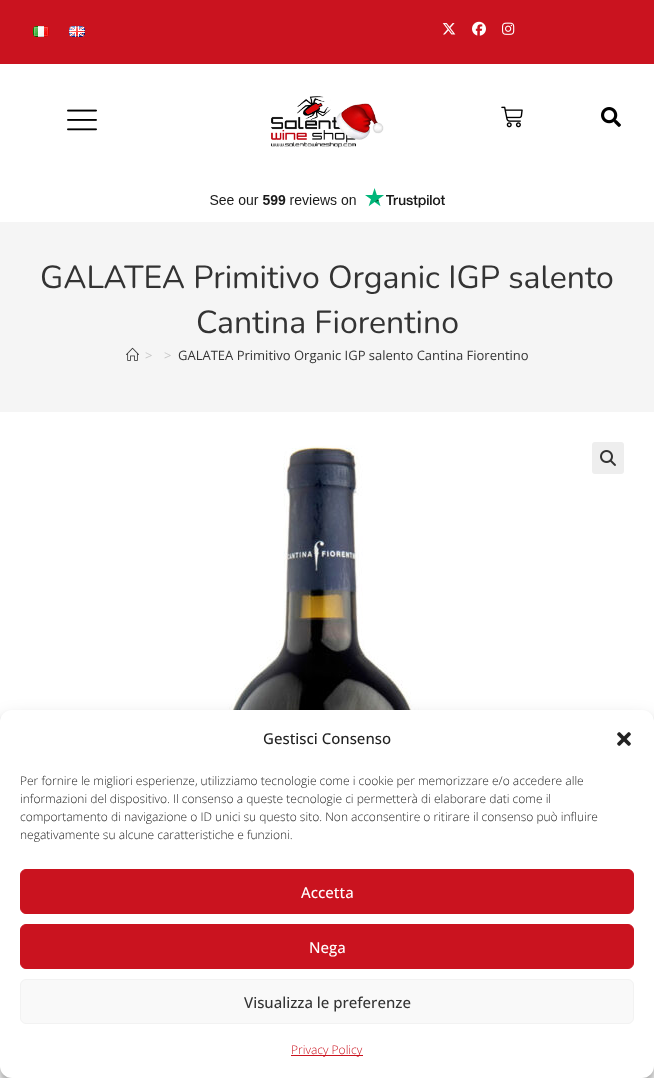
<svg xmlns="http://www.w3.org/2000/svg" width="654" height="1078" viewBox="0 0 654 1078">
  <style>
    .t1 { font: 32px Nunito; fill: #333; }
    .t2 { font: 13px Open Sans; fill: #c6c6c6; }
    .t3 { font: 13px Open Sans; fill: #333; }
    .t4 { font: 500 15px Open Sans; fill: #222; }
    .t5 { font: 300 12px Open Sans; fill: #222; }
    .t6 { font: 500 15px Open Sans; fill: #fff; }
    .t7 { font: 500 15px Open Sans; fill: #333; }
    .t8 { font: 300 12px Open Sans; fill: #ca131f; }
  </style>
  <rect width="100%" height="100%" fill="#fff"/>
  <rect x="0" y="0" width="654" height="64" fill="#ca131f"/>
  <image x="33" y="26" width="16" height="11" href="images/1.png"/>
  <image x="69" y="26" width="16" height="11" href="images/2.png"/>
  <image x="442" y="23" width="14" height="12" href="images/3.png"/>
  <image x="472" y="21" width="14" height="15" href="images/4.png"/>
  <image x="502" y="22" width="13" height="13" href="images/5.png"/>
  <image x="67" y="109" width="30" height="22" href="images/6.png"/>
  <image x="271" y="96" width="113" height="52" href="images/7.png"/>
  <image x="501" y="106" width="22" height="22" href="images/8.png"/>
  <image x="601" y="107" width="20" height="20" href="images/9.png"/>
  <image x="210" y="188" width="235" height="20" href="images/10.png"/>
  <rect x="0" y="222" width="654" height="190" fill="#f5f5f5"/>
  <text x="40" y="288" class="t1">GALATEA Primitivo Organic IGP salento</text>
  <text x="196" y="333" class="t1">Cantina Fiorentino</text>
  <image x="126" y="347" width="13" height="14" href="images/11.png"/>
  <text x="145" y="360" class="t2">&gt;</text>
  <text x="164" y="360" class="t2">&gt;</text>
  <text x="178" y="360" class="t3">GALATEA Primitivo Organic IGP salento Cantina Fiorentino</text>
  <image x="223" y="445" width="196" height="265" href="images/12.png"/>
  <rect x="592" y="442" width="32" height="32" rx="3" fill="#eee"/>
  <image x="600" y="450" width="16" height="16" href="images/13.png"/>
  <rect x="0" y="716" width="654" height="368" rx="12" fill="#0000003b" filter="blur(3px)"/>
  <rect x="0" y="720" width="654" height="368" rx="12" fill="#00000030" filter="blur(10px)"/>
  <rect x="0" y="710" width="654" height="368" rx="12" fill="#fff"/>
  <text x="263" y="744" class="t4">Gestisci Consenso</text>
  <image x="617" y="732" width="14" height="14" href="images/14.png"/>
  <text x="20" y="785" class="t5">Per fornire le migliori esperienze, utilizziamo tecnologie come i cookie per memorizzare e/o accedere alle</text>
  <text x="20" y="803" class="t5">informazioni del dispositivo. Il consenso a queste tecnologie ci permetterà di elaborare dati come il</text>
  <text x="20" y="821" class="t5">comportamento di navigazione o ID unici su questo sito. Non acconsentire o ritirare il consenso può influire</text>
  <text x="20" y="839" class="t5">negativamente su alcune caratteristiche e funzioni.</text>
  <rect x="20.5" y="869.5" width="613" height="44" rx="5.5" fill="#ca131f" stroke="#ca131f"/>
  <text x="301" y="898" class="t6">Accetta</text>
  <rect x="20.5" y="924.5" width="613" height="44" rx="5.5" fill="#ca131f" stroke="#ca131f"/>
  <text x="309" y="953" class="t6">Nega</text>
  <rect x="20.5" y="979.5" width="613" height="44" rx="5.5" fill="#f9f9f9" stroke="#f2f2f2"/>
  <text x="244" y="1008" class="t7">Visualizza le preferenze</text>
  <rect x="291" y="1055" width="72" height="1" fill="#ca131f"/>
  <text x="291" y="1054" class="t8">Privacy Policy</text>
</svg>
